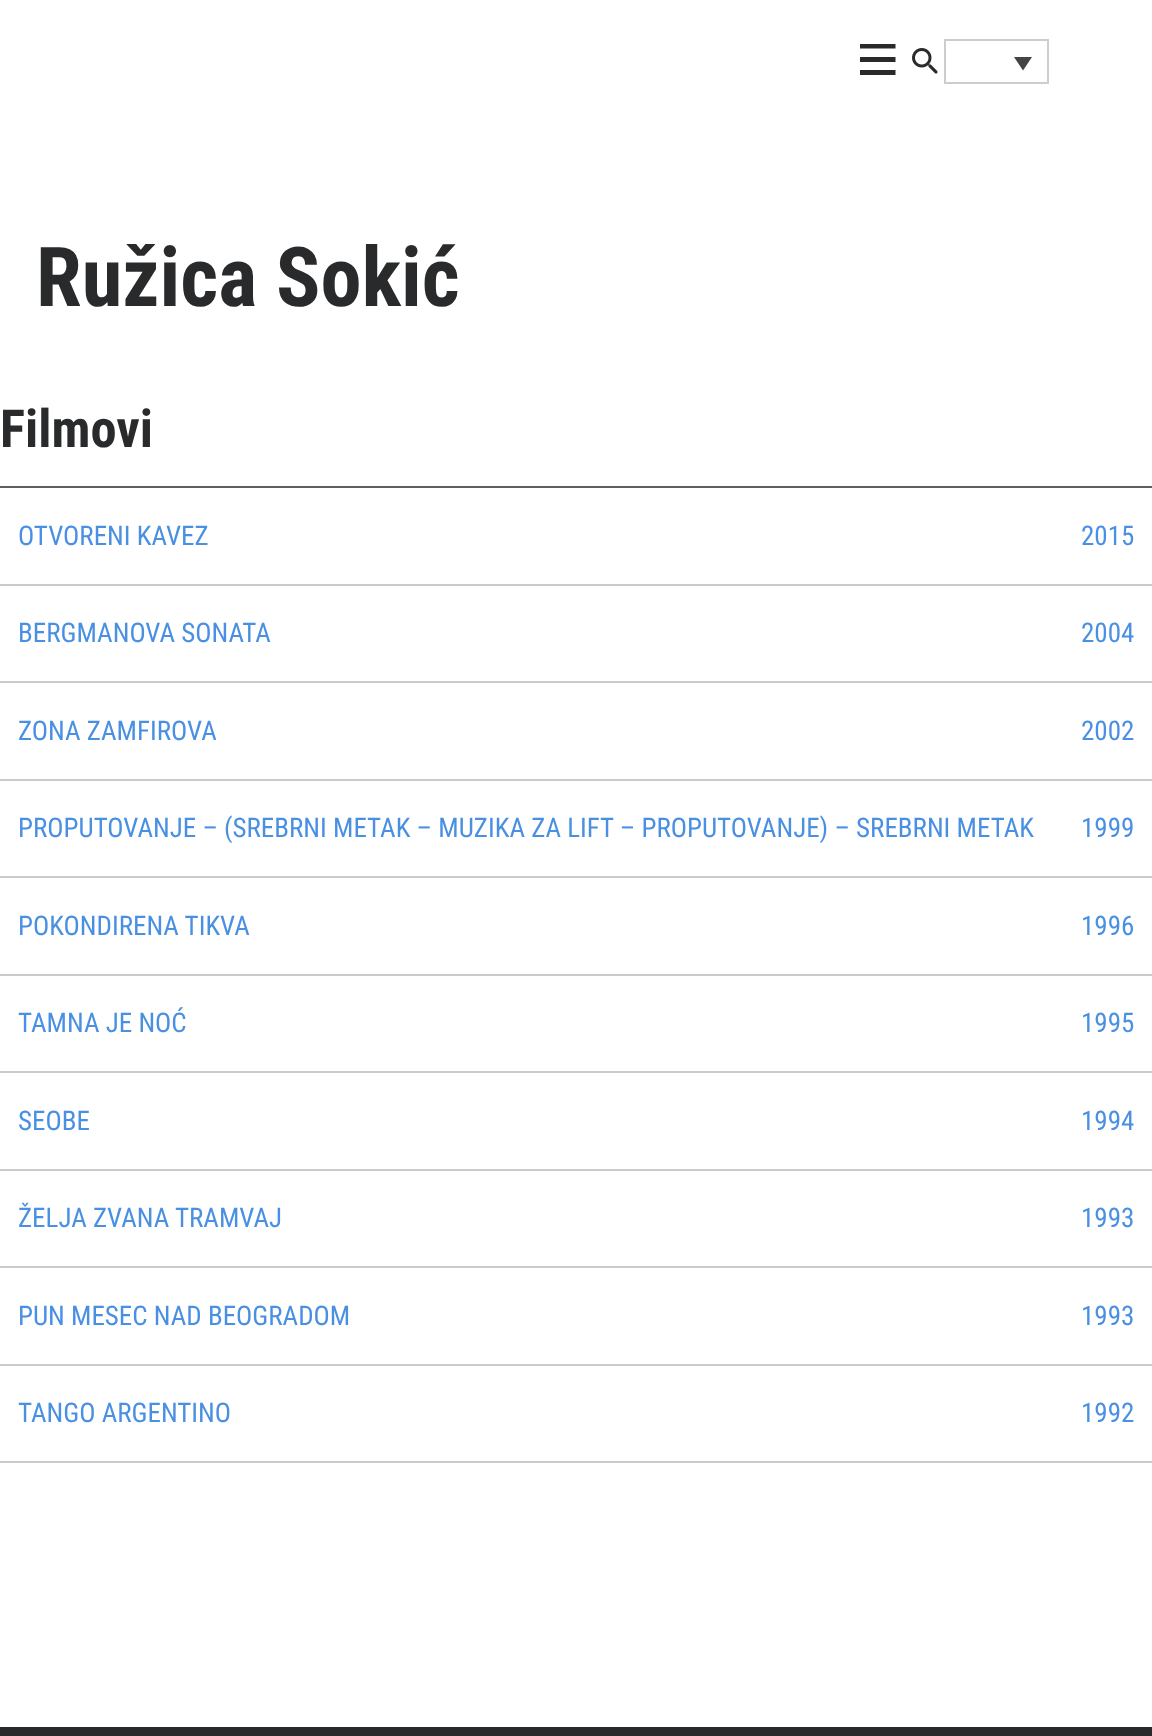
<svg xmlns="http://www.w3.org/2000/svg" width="1152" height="1736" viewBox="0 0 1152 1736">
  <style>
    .t1 { font: bold 82.5px Roboto Condensed; fill: #292a2c; }
    .t2 { font: bold 52.5px Roboto Condensed; fill: #292a2c; }
    .t3 { font: 27px Roboto Condensed; fill: #4a90e2; }
  </style>
  <defs>
    <clipPath id="clip1"><rect x="860" y="44" width="36" height="33"/></clipPath>
  </defs>
  <rect width="100%" height="100%" fill="#fff"/>
  <g clip-path="url(#clip1)">
    <path d="M859.5 43.5H895.5V48.5H859.5ZM859.5 57H895.5V62H859.5ZM859.5 70H895.5V75H859.5Z" fill="#292a2c"/>
  </g>
  <image x="912" y="48" width="26" height="26" href="images/1.png"/>
  <rect x="945" y="40" width="103" height="43" fill="none" stroke="#cdcdcd" stroke-width="2"/>
  <path d="M1014 57H1032L1023 70.5Z" fill="#444"/>
  <text x="36" y="306" class="t1">Ružica Sokić</text>
  <text x="0" y="447" class="t2">Filmovi</text>
  <rect x="0" y="486" width="1152" height="2" fill="#5f5f61"/>
  <rect x="0" y="584" width="1152" height="2" fill="#cacaca"/>
  <text x="18" y="545" class="t3">OTVORENI KAVEZ</text>
  <text x="1081" y="545" class="t3">2015</text>
  <rect x="0" y="681" width="1152" height="2" fill="#cacaca"/>
  <text x="18" y="642" class="t3">BERGMANOVA SONATA</text>
  <text x="1081" y="642" class="t3">2004</text>
  <rect x="0" y="779" width="1152" height="2" fill="#cacaca"/>
  <text x="18" y="740" class="t3">ZONA ZAMFIROVA</text>
  <text x="1081" y="740" class="t3">2002</text>
  <rect x="0" y="876" width="1152" height="2" fill="#cacaca"/>
  <text x="18" y="837" class="t3">PROPUTOVANJE – (SREBRNI METAK – MUZIKA ZA LIFT – PROPUTOVANJE) – SREBRNI METAK</text>
  <text x="1081" y="837" class="t3">1999</text>
  <rect x="0" y="974" width="1152" height="2" fill="#cacaca"/>
  <text x="18" y="935" class="t3">POKONDIRENA TIKVA</text>
  <text x="1081" y="935" class="t3">1996</text>
  <rect x="0" y="1071" width="1152" height="2" fill="#cacaca"/>
  <text x="18" y="1032" class="t3">TAMNA JE NOĆ</text>
  <text x="1081" y="1032" class="t3">1995</text>
  <rect x="0" y="1169" width="1152" height="2" fill="#cacaca"/>
  <text x="18" y="1130" class="t3">SEOBE</text>
  <text x="1081" y="1130" class="t3">1994</text>
  <rect x="0" y="1266" width="1152" height="2" fill="#cacaca"/>
  <text x="18" y="1227" class="t3">ŽELJA ZVANA TRAMVAJ</text>
  <text x="1081" y="1227" class="t3">1993</text>
  <rect x="0" y="1364" width="1152" height="2" fill="#cacaca"/>
  <text x="18" y="1325" class="t3">PUN MESEC NAD BEOGRADOM</text>
  <text x="1081" y="1325" class="t3">1993</text>
  <rect x="0" y="1461" width="1152" height="2" fill="#cacaca"/>
  <text x="18" y="1422" class="t3">TANGO ARGENTINO</text>
  <text x="1081" y="1422" class="t3">1992</text>
  <rect x="0" y="1727" width="1152" height="9" fill="#292a2c"/>
</svg>
